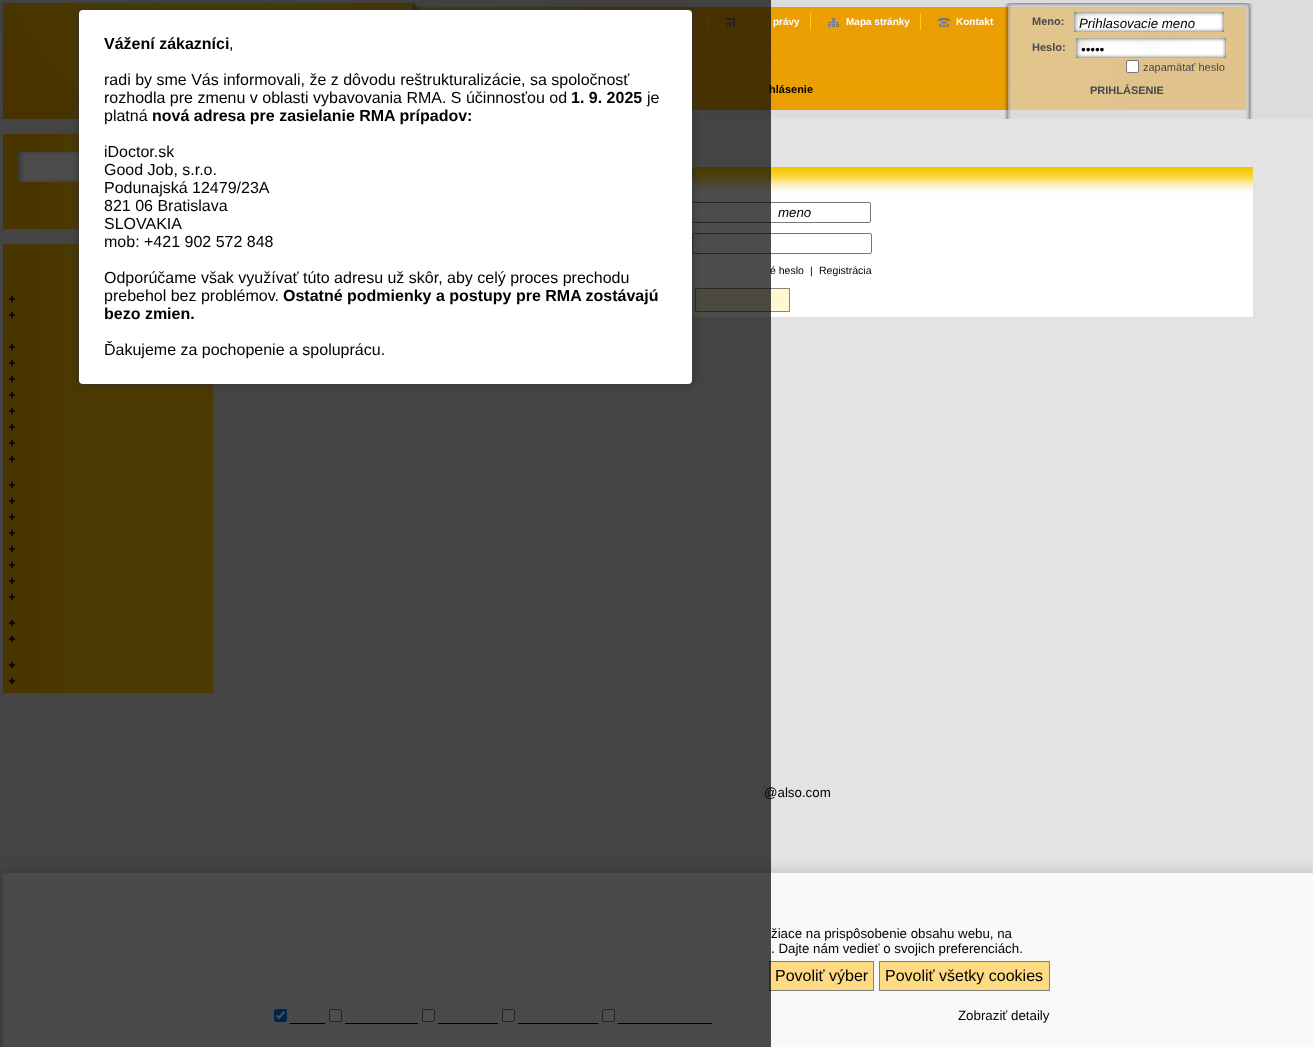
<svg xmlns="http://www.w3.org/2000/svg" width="1313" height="1047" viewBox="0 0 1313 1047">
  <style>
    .t1 { font: bold 11px Liberation Sans; fill: #000; }
    .t2 { font: 10.5px Liberation Sans; fill: #000; }
    .t3 { font: 13.3px Liberation Sans; fill: #000; }
    .t4 { font: bold 16px Liberation Sans; fill: #000; }
    .t5 { font: 16px Liberation Sans; fill: #000; }
    .t6 { font: bold 10px Liberation Sans; fill: #fff; }
    .t7 { font: bold 11px Liberation Sans; fill: #494949; }
    .t8 { font: italic 13.3px Liberation Sans; fill: #000; }
    .t9 { font: 11px Liberation Sans; fill: #494949; }
  </style>
  <rect width="100%" height="100%" fill="#e3e3e3"/>
  <rect x="0" y="0" width="1313" height="119" fill="#dcdcdc"/>
  <image x="766" y="3" width="238" height="116" href="images/1.png"/>
  <image x="3" y="3" width="763" height="116" href="images/2.png"/>
  <rect x="708" y="13" width="1" height="17" fill="#fed200"/>
  <image x="726" y="18" width="9" height="9" href="images/4.png"/>
  <text x="769" y="93" class="t1">hlásenie</text>
  <rect x="64" y="134" width="15" height="95" fill="#f8c000"/>
  <image x="3" y="134" width="61" height="95" href="images/8.png"/>
  <image x="17" y="152" width="62" height="30" href="images/9.png"/>
  <rect x="64" y="244" width="149" height="449" fill="#f8c000"/>
  <image x="3" y="244" width="61" height="449" href="images/10.png"/>
  <image x="9" y="296" width="6" height="6" href="images/11.png"/>
  <image x="9" y="312" width="6" height="6" href="images/11.png"/>
  <image x="9" y="344" width="6" height="6" href="images/11.png"/>
  <image x="9" y="360" width="6" height="6" href="images/11.png"/>
  <image x="9" y="376" width="6" height="6" href="images/11.png"/>
  <image x="9" y="392" width="6" height="6" href="images/11.png"/>
  <image x="9" y="408" width="6" height="6" href="images/11.png"/>
  <image x="9" y="424" width="6" height="6" href="images/11.png"/>
  <image x="9" y="440" width="6" height="6" href="images/11.png"/>
  <image x="9" y="456" width="6" height="6" href="images/11.png"/>
  <image x="9" y="482" width="6" height="6" href="images/11.png"/>
  <image x="9" y="498" width="6" height="6" href="images/11.png"/>
  <image x="9" y="514" width="6" height="6" href="images/11.png"/>
  <image x="9" y="530" width="6" height="6" href="images/11.png"/>
  <image x="9" y="546" width="6" height="6" href="images/11.png"/>
  <image x="9" y="562" width="6" height="6" href="images/11.png"/>
  <image x="9" y="578" width="6" height="6" href="images/11.png"/>
  <image x="9" y="594" width="6" height="6" href="images/11.png"/>
  <image x="9" y="620" width="6" height="6" href="images/11.png"/>
  <image x="9" y="636" width="6" height="6" href="images/11.png"/>
  <image x="9" y="662" width="6" height="6" href="images/11.png"/>
  <image x="9" y="678" width="6" height="6" href="images/11.png"/>
  <rect x="692" y="193" width="561" height="124" fill="#fff"/>
  <image x="692" y="167" width="561" height="26" href="images/12.png"/>
  <rect x="691.5" y="202.5" width="179" height="20" rx="1.5" fill="none" stroke="#767676"/>
  <rect x="692.5" y="233.5" width="179" height="20" rx="1.5" fill="none" stroke="#767676"/>
  <text x="770" y="274" class="t2">é heslo</text>
  <rect x="695.5" y="288.5" width="94" height="23" fill="#fff7d0" stroke="#888585"/>
  <text x="764" y="797" class="t3">@also.com</text>
  <rect x="1" y="871" width="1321" height="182" fill="#c0c0c0" filter="blur(7px)"/>
  <rect x="3" y="873" width="1310" height="174" fill="#f9f9f9"/>
  <rect x="769.5" y="961.5" width="104" height="29" fill="#fedb82" stroke="#808080"/>
  <rect x="274" y="1009" width="13" height="13" rx="2" fill="#0075ff"/>
  <path d="M276.5 1015.5L279 1018L284.5 1011.5" fill="none" stroke="#fff" stroke-width="2.1"/>
  <rect x="329.5" y="1009.5" width="12" height="12" rx="1.5" fill="#fff" stroke="#767676"/>
  <rect x="422.5" y="1009.5" width="12" height="12" rx="1.5" fill="#fff" stroke="#767676"/>
  <rect x="502.5" y="1009.5" width="12" height="12" rx="1.5" fill="#fff" stroke="#767676"/>
  <rect x="602.5" y="1009.5" width="12" height="12" rx="1.5" fill="#fff" stroke="#767676"/>
  <rect x="290" y="1023" width="35" height="1" fill="#000"/>
  <rect x="345" y="1023" width="73" height="1" fill="#000"/>
  <rect x="438" y="1023" width="60" height="1" fill="#000"/>
  <rect x="518" y="1023" width="80" height="1" fill="#000"/>
  <rect x="618" y="1023" width="94" height="1" fill="#000"/>
  <rect x="0" y="0" width="771" height="1047" fill="#000000b3"/>
  <rect x="76" y="7" width="619" height="380" rx="7" fill="#32323280" filter="blur(2.5px)"/>
  <rect x="79" y="10" width="613" height="374" rx="4" fill="#fff"/>
  <text x="104" y="49" class="t4">Vážení zákazníci</text>
  <text x="229" y="49" class="t5">,</text>
  <text x="104" y="85" class="t5">radi by sme Vás informovali, že z dôvodu reštrukturalizácie, sa spoločnosť</text>
  <text x="104" y="103" class="t5">rozhodla pre zmenu v oblasti vybavovania RMA. S účinnosťou od</text>
  <text x="571" y="103" class="t4">1. 9. 2025</text>
  <text x="647" y="103" class="t5">je</text>
  <text x="104" y="121" class="t5">platná</text>
  <text x="152" y="121" class="t4">nová adresa pre zasielanie RMA prípadov:</text>
  <text x="104" y="157" class="t5">iDoctor.sk</text>
  <text x="104" y="175" class="t5">Good Job, s.r.o.</text>
  <text x="104" y="193" class="t5">Podunajská 12479/23A</text>
  <text x="104" y="211" class="t5">821 06 Bratislava</text>
  <text x="104" y="229" class="t5">SLOVAKIA</text>
  <text x="104" y="247" class="t5">mob: +421 902 572 848</text>
  <text x="104" y="283" class="t5">Odporúčame však využívať túto adresu už skôr, aby celý proces prechodu</text>
  <text x="104" y="301" class="t5">prebehol bez problémov.</text>
  <text x="283" y="301" class="t4">Ostatné podmienky a postupy pre RMA zostávajú</text>
  <text x="104" y="319" class="t4">bezo zmien.</text>
  <text x="104" y="355" class="t5">Ďakujeme za pochopenie a spoluprácu.</text>
  <image x="1004" y="3" width="249" height="116" href="images/3.png"/>
  <rect x="810" y="13" width="1" height="17" fill="#fed200"/>
  <text x="773" y="25" class="t6">právy</text>
  <image x="828" y="18" width="11" height="9" href="images/5.png"/>
  <rect x="920" y="13" width="1" height="17" fill="#fed200"/>
  <text x="846" y="25" class="t6">Mapa stránky</text>
  <image x="938" y="18" width="12" height="9" href="images/6.png"/>
  <text x="956" y="25" class="t6">Kontakt</text>
  <text x="1032" y="25" class="t7">Meno:</text>
  <image x="1074" y="12" width="150" height="20" href="images/7.png"/>
  <text x="1079" y="28" class="t8">Prihlasovacie meno</text>
  <text x="1032" y="51" class="t7">Heslo:</text>
  <image x="1076" y="38" width="150" height="20" href="images/7.png"/>
  <text x="1081" y="54" class="t8">•••••</text>
  <rect x="1126.5" y="60.5" width="12" height="12" rx="1.5" fill="#fff" stroke="#767676"/>
  <text x="1143" y="71" class="t9">zapamätať heslo</text>
  <text x="1090" y="94" class="t7">PRIHLÁSENIE</text>
  <text x="778" y="217" class="t8">meno</text>
  <text x="810" y="274" class="t2">|</text>
  <text x="819" y="274" class="t2">Registrácia</text>
  <text x="771" y="938" class="t3">žiace na prispôsobenie obsahu webu, na</text>
  <text x="771" y="953" class="t3">. Dajte nám vedieť o svojich preferenciách.</text>
  <text x="775" y="981" class="t5">Povoliť výber</text>
  <rect x="879.5" y="961.5" width="170" height="29" fill="#fedb82" stroke="#808080"/>
  <text x="885" y="981" class="t5">Povoliť všetky cookies</text>
  <text x="958" y="1020" class="t3">Zobraziť detaily</text>
</svg>
